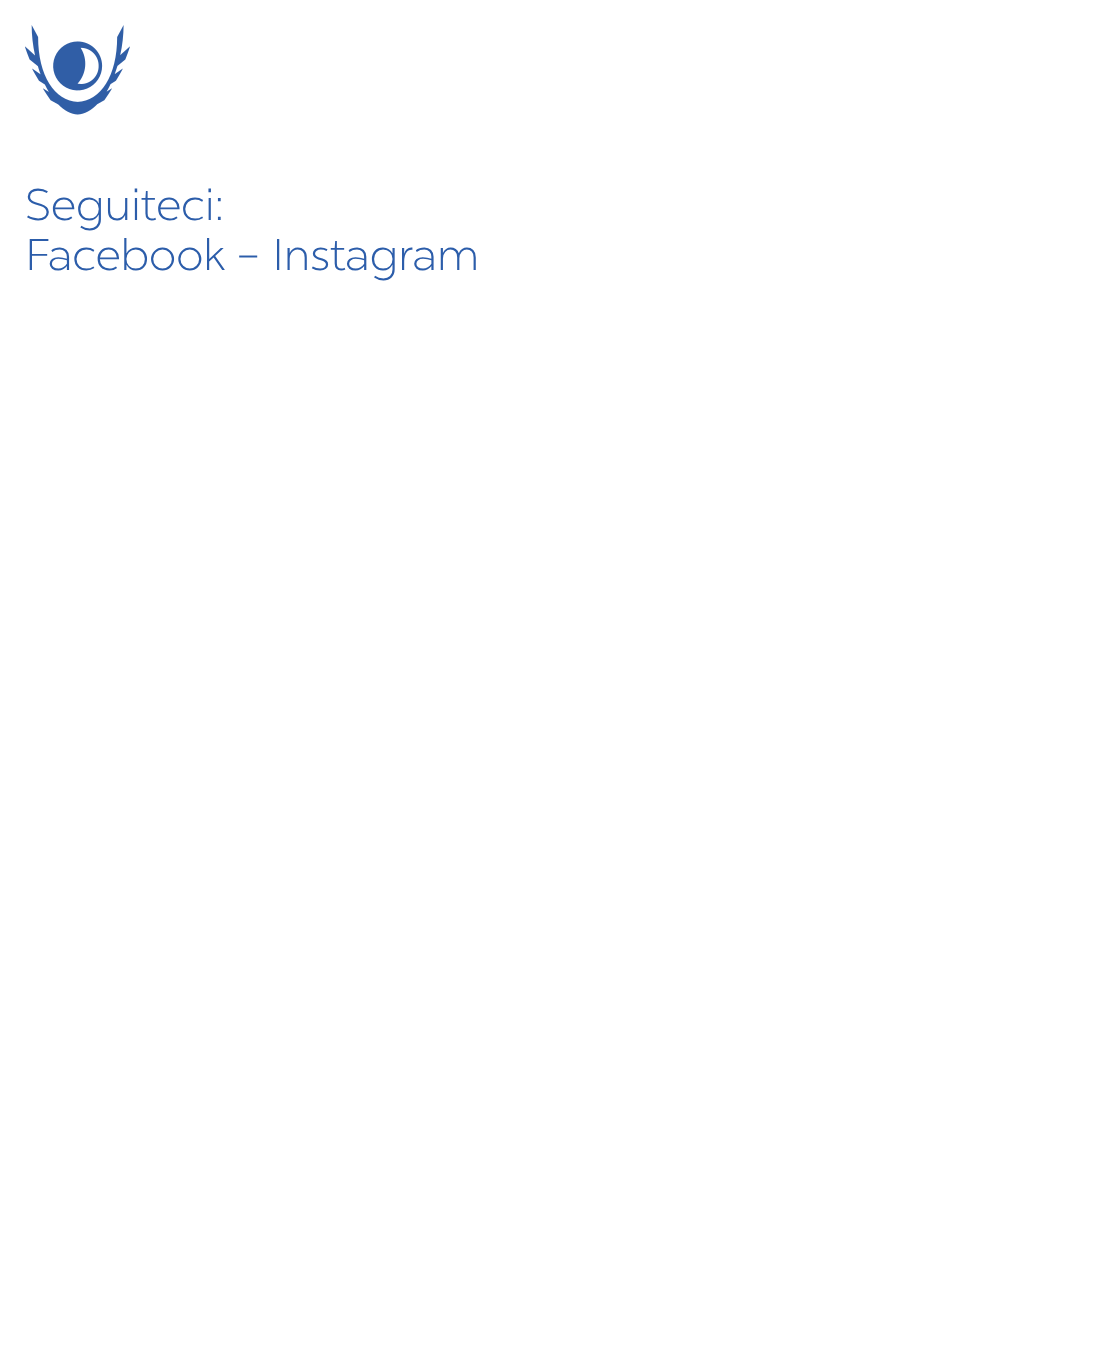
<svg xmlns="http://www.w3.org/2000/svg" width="1105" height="1345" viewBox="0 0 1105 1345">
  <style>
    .t1 { font: 300 44.25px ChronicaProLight; letter-spacing: -0.1px; fill: #2c5daa; }
  </style>
  <rect width="100%" height="100%" fill="#fff"/>
  <image x="25" y="25" width="105" height="90" href="images/1.png"/>
  <text x="25" y="220" class="t1">Seguiteci:</text>
  <text x="25" y="270" class="t1">Facebook</text>
  <text x="236" y="270" class="t1">– Instagram</text>
</svg>
